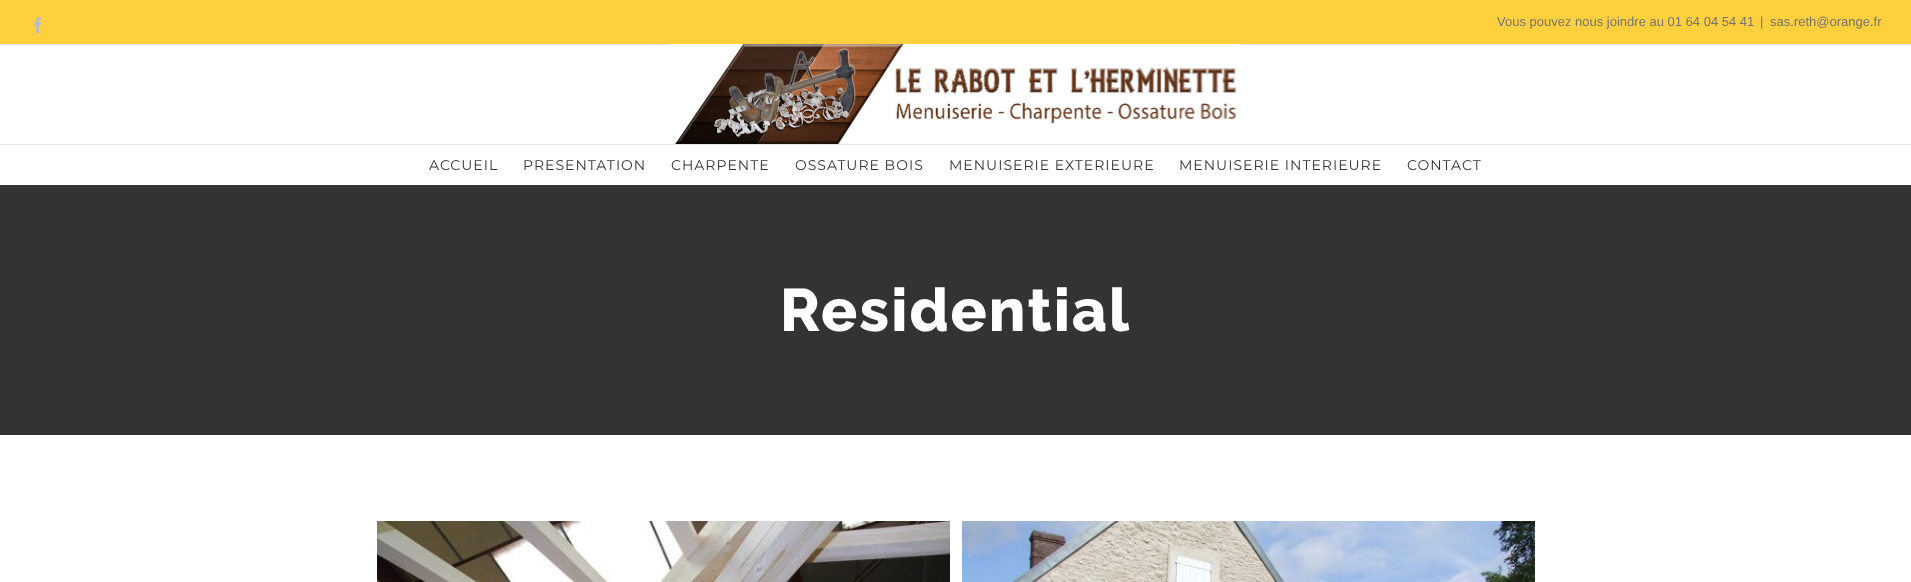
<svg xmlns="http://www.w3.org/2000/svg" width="1911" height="582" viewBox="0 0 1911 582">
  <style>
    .t1 { font: 13px Liberation Sans; fill: #747474; }
    .t2 { font: 100 14px Montserrat; letter-spacing: 1px; fill: #333; }
    .t3 { font: 100 60px Raleway; letter-spacing: 2px; fill: #fff; }
  </style>
  <rect width="100%" height="100%" fill="#fff"/>
  <rect x="0" y="0" width="1911" height="44" fill="#fed03d"/>
  <rect x="0" y="44" width="1911" height="1" fill="#e5e5e5"/>
  <image x="34" y="17" width="8" height="16" href="images/1.png"/>
  <text x="1497" y="26" class="t1">Vous pouvez nous joindre au 01 64 04 54 41</text>
  <text x="1760" y="26" class="t1">|</text>
  <text x="1770" y="26" class="t1">sas.reth@orange.fr</text>
  <rect x="0" y="144" width="1911" height="1" fill="#e5e5e5"/>
  <image x="670" y="44" width="572" height="100" href="images/2.png"/>
  <text x="429" y="170" class="t2">ACCUEIL</text>
  <text x="523" y="170" class="t2">PRESENTATION</text>
  <text x="671" y="170" class="t2">CHARPENTE</text>
  <text x="795" y="170" class="t2">OSSATURE BOIS</text>
  <text x="949" y="170" class="t2">MENUISERIE EXTERIEURE</text>
  <text x="1179" y="170" class="t2">MENUISERIE INTERIEURE</text>
  <text x="1407" y="170" class="t2">CONTACT</text>
  <rect x="0" y="185" width="1911" height="250" fill="#333"/>
  <text x="780" y="331" class="t3">Residential</text>
  <image x="377" y="521" width="573" height="61" href="images/3.png"/>
  <image x="962" y="521" width="573" height="61" href="images/4.png"/>
</svg>
